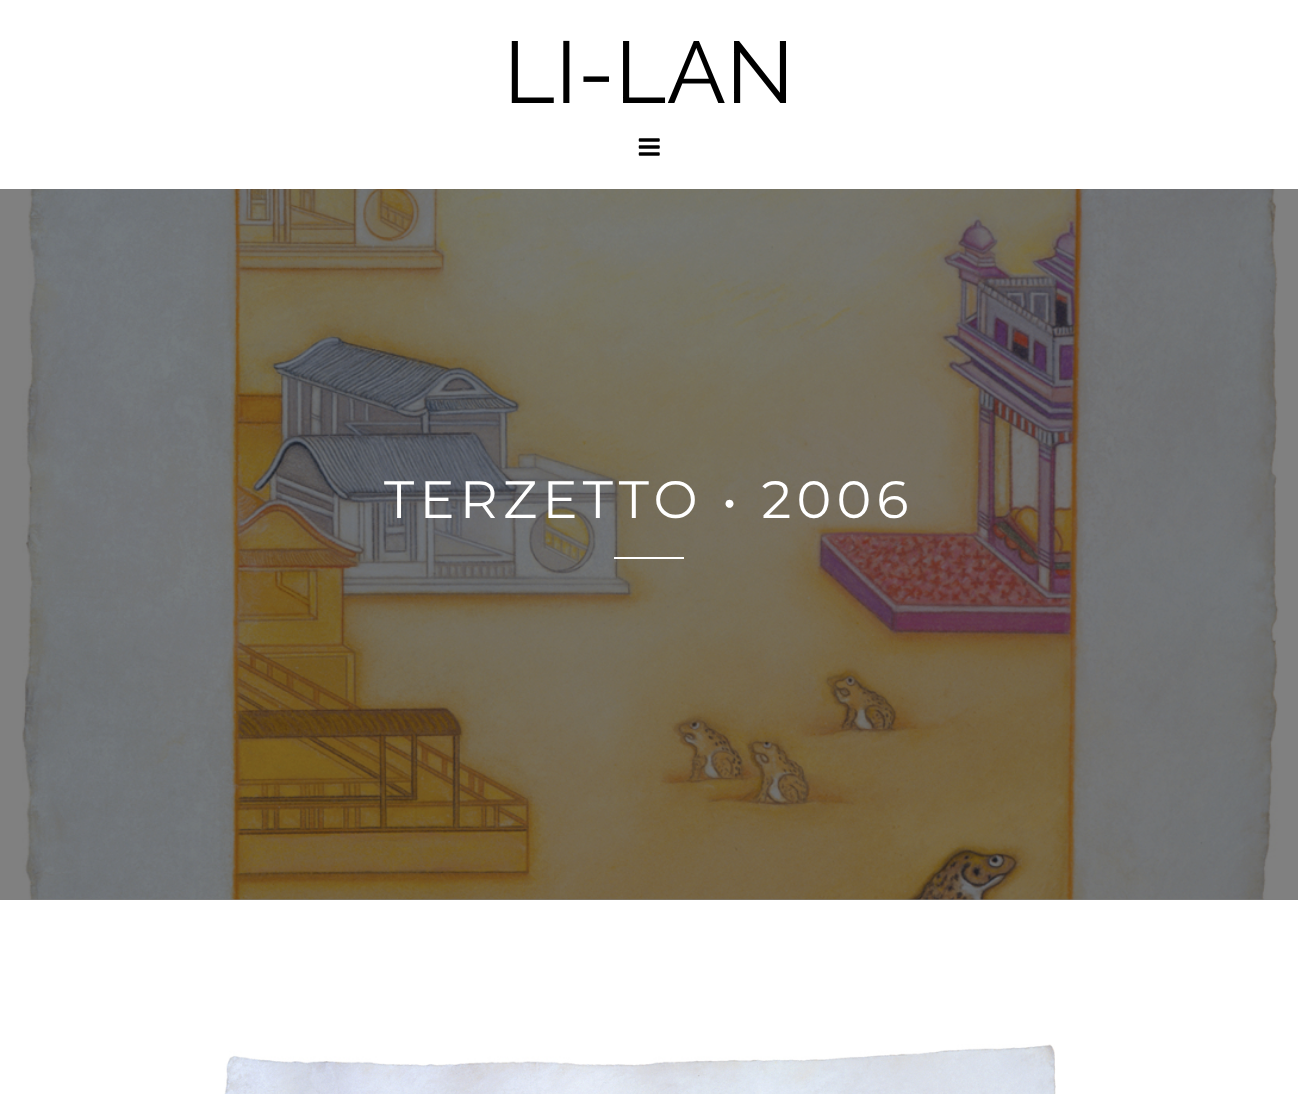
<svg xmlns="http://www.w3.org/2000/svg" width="1298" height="1094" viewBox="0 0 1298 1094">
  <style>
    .t1 { font: 87.5px Raleway; letter-spacing: 0.5px; fill: #000; }
    .t2 { font: 52.5px Montserrat; letter-spacing: 5.25px; fill: #fff; }
  </style>
  <rect width="100%" height="100%" fill="#fff"/>
  <rect x="0" y="189" width="1298" height="711" fill="#808080"/>
  <text x="504" y="103" class="t1">LI-LAN</text>
  <image x="638" y="138" width="22" height="18" href="images/1.png"/>
  <image x="22" y="189" width="1257" height="711" href="images/2.png"/>
  <text x="384" y="518" class="t2">TERZETTO • 2006</text>
  <rect x="614" y="557" width="70" height="2" fill="#fff"/>
  <image x="224" y="1044" width="832" height="50" href="images/3.png"/>
</svg>
